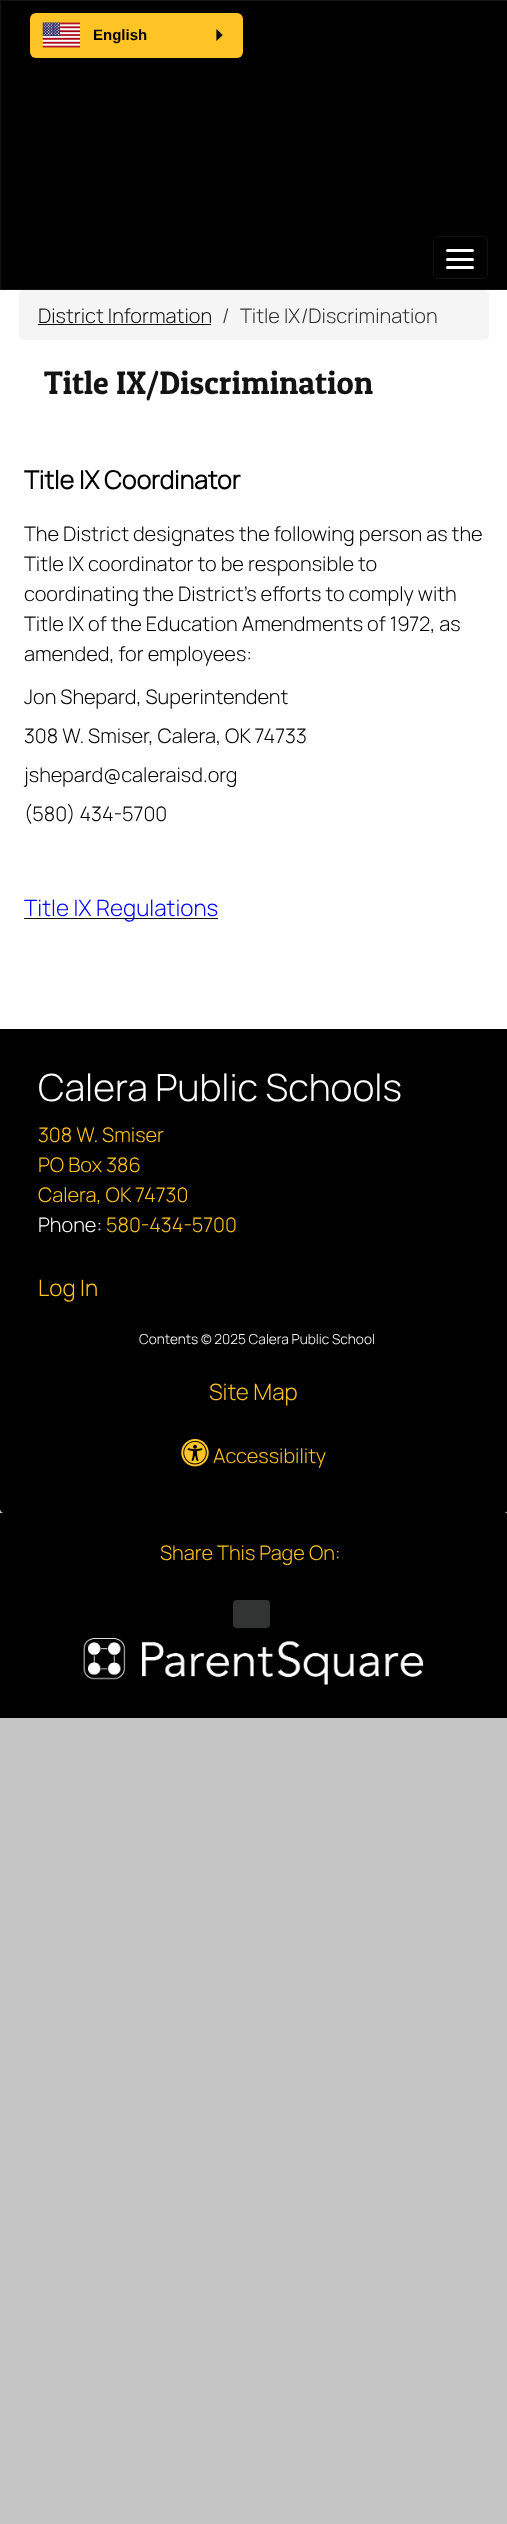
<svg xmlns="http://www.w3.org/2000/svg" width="507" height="2524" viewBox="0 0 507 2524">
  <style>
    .t1 { font: bold 15px Liberation Sans; fill: #000; }
    .t2 { font: 200 20px Manrope; fill: #131313; }
    .t3 { font: 200 20px Manrope; fill: #333; }
    .t4 { font: 32.5px Patua One; fill: #131313; }
    .t5 { font: bold 25px Manrope; fill: #000; }
    .t6 { font: 200 20px Manrope; fill: #000; }
    .t7 { font: 200 22.5px Manrope; fill: #00f; }
    .t8 { font: 200 37.5px Manrope; fill: #fff; }
    .t9 { font: 200 20px Manrope; fill: #fec425; }
    .t10 { font: 200 20px Manrope; fill: #fff; }
    .t11 { font: 200 22.5px Manrope; fill: #fec425; }
    .t12 { font: 200 13.75px Manrope; fill: #fff; }
  </style>
  <rect width="100%" height="100%" fill="#c5c5c5"/>
  <rect x="0.5" y="0.5" width="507" height="289" fill="#000" stroke="#131313"/>
  <rect x="433.5" y="236.5" width="54" height="42" rx="4.5" fill="none" stroke="#131313"/>
  <rect x="446" y="249" width="28" height="3" rx="1.5" fill="#fff"/>
  <rect x="446" y="258" width="28" height="3" rx="1.5" fill="#fff"/>
  <rect x="446" y="266" width="28" height="3" rx="1.5" fill="#fff"/>
  <rect x="30" y="13" width="213" height="45" rx="6" fill="#fec425"/>
  <image x="42" y="22" width="38" height="26" href="images/1.png"/>
  <text x="93" y="40" class="t1">English</text>
  <image x="216" y="29" width="7" height="12" href="images/2.png"/>
  <rect x="0" y="290" width="507" height="739" fill="#fff"/>
  <rect x="19" y="290" width="470" height="50" rx="5" fill="#f5f5f5"/>
  <text x="38" y="323" class="t2">District Information</text>
  <rect x="38" y="324" width="173" height="1" fill="#131313"/>
  <text x="222" y="323" class="t3">/</text>
  <text x="240" y="323" class="t3">Title IX/Discrimination</text>
  <text x="44" y="394" class="t4">Title IX/Discrimination</text>
  <text x="24" y="489" class="t5">Title IX Coordinator</text>
  <text x="24" y="541" class="t6">The District designates the following person as the</text>
  <text x="24" y="571" class="t6">Title IX coordinator to be responsible to</text>
  <text x="24" y="601" class="t6">coordinating the District’s efforts to comply with</text>
  <text x="24" y="631" class="t6">Title IX of the Education Amendments of 1972, as</text>
  <text x="24" y="661" class="t6">amended, for employees:</text>
  <text x="24" y="704" class="t6">Jon Shepard, Superintendent</text>
  <text x="24" y="743" class="t6">308 W. Smiser, Calera, OK 74733</text>
  <text x="24" y="782" class="t6">jshepard@caleraisd.org</text>
  <text x="24" y="821" class="t6">(580) 434-5700</text>
  <rect x="24" y="918" width="194" height="1" fill="#131313"/>
  <text x="24" y="916" class="t7">Title IX Regulations</text>
  <path d="M0 1029H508V1509C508 1511 506 1513 504 1513H4C2 1513 0 1511 0 1509Z" fill="#000"/>
  <text x="38" y="1101" class="t8">Calera Public Schools</text>
  <text x="38" y="1142" class="t9">308 W. Smiser</text>
  <text x="38" y="1172" class="t9">PO Box 386</text>
  <text x="38" y="1202" class="t9">Calera, OK 74730</text>
  <text x="38" y="1232" class="t10">Phone:</text>
  <text x="106" y="1232" class="t9">580-434-5700</text>
  <text x="38" y="1296" class="t11">Log In</text>
  <text x="139" y="1344" class="t12">Contents © 2025 Calera Public School</text>
  <text x="209" y="1400" class="t11">Site Map</text>
  <image x="181" y="1438" width="28" height="29" href="images/3.png"/>
  <text x="213" y="1463" class="t9">Accessibility</text>
  <rect x="0" y="1513" width="507" height="205" fill="#000"/>
  <text x="160" y="1560" class="t9">Share This Page On:</text>
  <rect x="233" y="1600" width="37" height="28" rx="4" fill="#323333"/>
  <image x="83" y="1638" width="341" height="47" href="images/4.png"/>
</svg>
